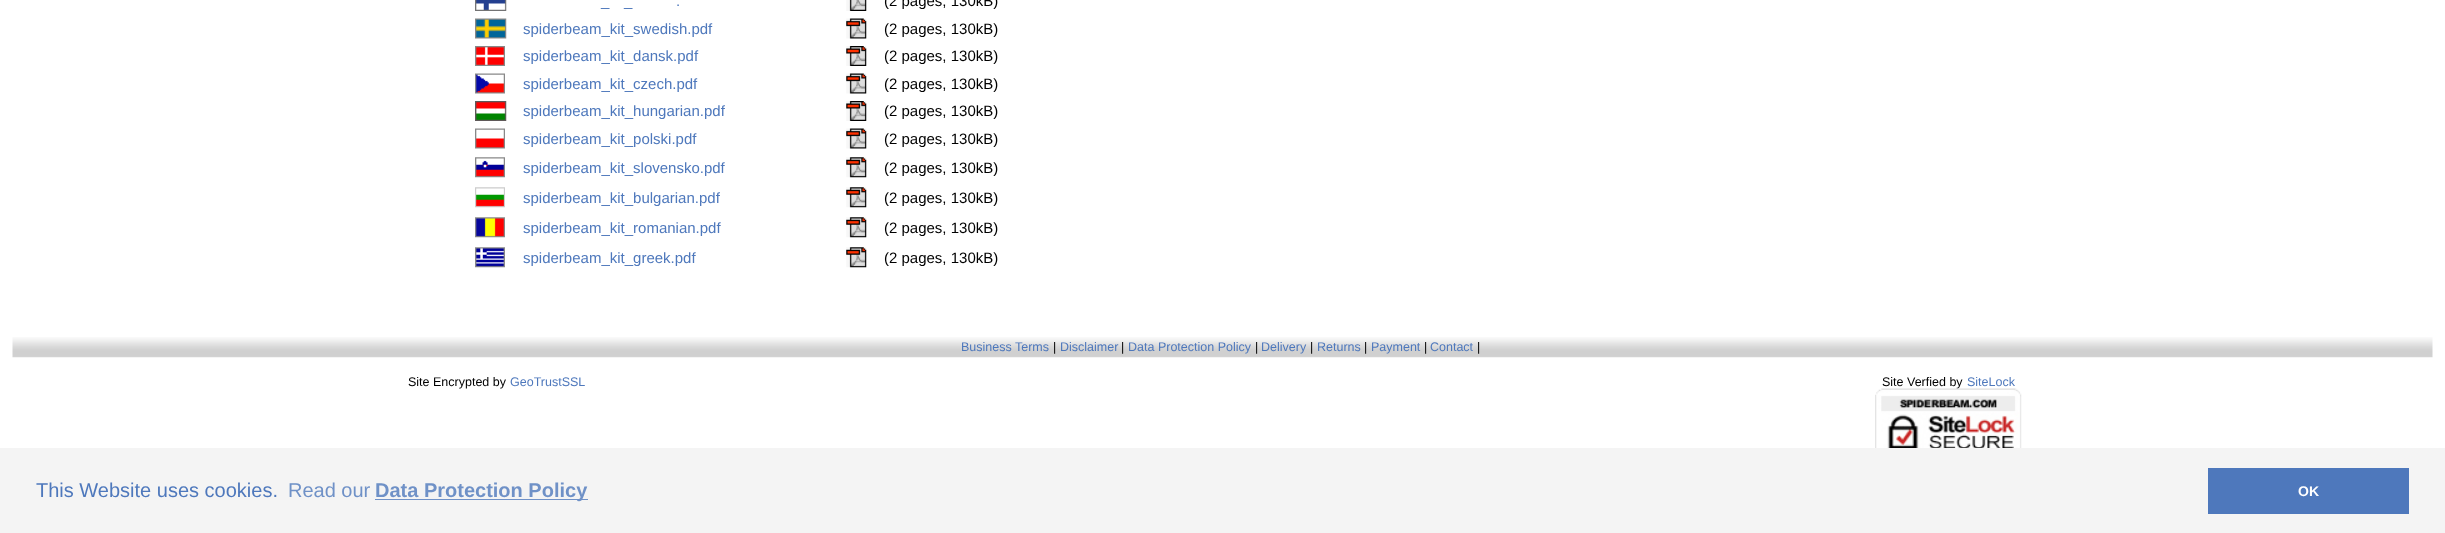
<svg xmlns="http://www.w3.org/2000/svg" width="2445" height="533" viewBox="0 0 2445 533">
  <style>
    .t1 { font: 15px Liberation Sans; fill: #4e78bc; }
    .t2 { font: 15px Liberation Sans; fill: #000; }
    .t3 { font: 12.5px Liberation Sans; fill: #4e78bc; }
    .t4 { font: 12.5px Liberation Sans; fill: #000; }
    .t5 { font: 20px Liberation Sans; fill: #4e78bc; }
    .t6 { font: 20px Liberation Sans; fill: #6f91c7; }
    .t7 { font: bold 20px Liberation Sans; fill: #6f91c7; }
    .t8 { font: bold 14px Liberation Sans; fill: #fff; }
  </style>
  <rect width="100%" height="100%" fill="#fff"/>
  <image x="475" y="0" width="32" height="11" href="images/1.png"/>
  <text x="676" y="6" class="t1">.</text>
  <text x="601" y="6" class="t1">_</text>
  <text x="624" y="6" class="t1">_</text>
  <image x="846" y="0" width="21" height="11" href="images/2.png"/>
  <text x="884" y="6" class="t2">(2 pages, 130kB)</text>
  <image x="475" y="18" width="32" height="21" href="images/3.png"/>
  <text x="523" y="34" class="t1">spiderbeam_kit_swedish.pdf</text>
  <image x="846" y="18" width="21" height="21" href="images/4.png"/>
  <text x="884" y="34" class="t2">(2 pages, 130kB)</text>
  <image x="475" y="46" width="30" height="20" href="images/5.png"/>
  <text x="523" y="61" class="t1">spiderbeam_kit_dansk.pdf</text>
  <image x="846" y="46" width="21" height="20" href="images/6.png"/>
  <text x="884" y="61" class="t2">(2 pages, 130kB)</text>
  <image x="475" y="73" width="30" height="21" href="images/7.png"/>
  <text x="523" y="89" class="t1">spiderbeam_kit_czech.pdf</text>
  <image x="846" y="73" width="21" height="21" href="images/4.png"/>
  <text x="884" y="89" class="t2">(2 pages, 130kB)</text>
  <image x="475" y="101" width="32" height="20" href="images/8.png"/>
  <text x="523" y="116" class="t1">spiderbeam_kit_hungarian.pdf</text>
  <image x="846" y="101" width="21" height="20" href="images/6.png"/>
  <text x="884" y="116" class="t2">(2 pages, 130kB)</text>
  <image x="475" y="128" width="30" height="21" href="images/9.png"/>
  <text x="523" y="144" class="t1">spiderbeam_kit_polski.pdf</text>
  <image x="846" y="128" width="21" height="21" href="images/4.png"/>
  <text x="884" y="144" class="t2">(2 pages, 130kB)</text>
  <image x="475" y="157" width="30" height="21" href="images/10.png"/>
  <text x="523" y="173" class="t1">spiderbeam_kit_slovensko.pdf</text>
  <image x="846" y="157" width="21" height="21" href="images/11.png"/>
  <text x="884" y="173" class="t2">(2 pages, 130kB)</text>
  <image x="475" y="187" width="30" height="21" href="images/12.png"/>
  <text x="523" y="203" class="t1">spiderbeam_kit_bulgarian.pdf</text>
  <image x="846" y="187" width="21" height="21" href="images/11.png"/>
  <text x="884" y="203" class="t2">(2 pages, 130kB)</text>
  <image x="475" y="217" width="30" height="21" href="images/13.png"/>
  <text x="523" y="233" class="t1">spiderbeam_kit_romanian.pdf</text>
  <image x="846" y="217" width="21" height="21" href="images/11.png"/>
  <text x="884" y="233" class="t2">(2 pages, 130kB)</text>
  <image x="475" y="247" width="30" height="21" href="images/14.png"/>
  <text x="523" y="263" class="t1">spiderbeam_kit_greek.pdf</text>
  <image x="846" y="247" width="21" height="21" href="images/11.png"/>
  <text x="884" y="263" class="t2">(2 pages, 130kB)</text>
  <image x="12" y="337" width="2421" height="21" href="images/15.png"/>
  <text x="961" y="351" class="t3">Business Terms</text>
  <text x="1053" y="351" class="t4">|</text>
  <text x="1060" y="351" class="t3">Disclaimer</text>
  <text x="1121" y="351" class="t4">|</text>
  <text x="1128" y="351" class="t3">Data Protection Policy</text>
  <text x="1255" y="351" class="t4">|</text>
  <text x="1261" y="351" class="t3">Delivery</text>
  <text x="1310" y="351" class="t4">|</text>
  <text x="1317" y="351" class="t3">Returns</text>
  <text x="1364" y="351" class="t4">|</text>
  <text x="1371" y="351" class="t3">Payment</text>
  <text x="1424" y="351" class="t4">|</text>
  <text x="1430" y="351" class="t3">Contact</text>
  <text x="1477" y="351" class="t4">|</text>
  <text x="408" y="386" class="t4">Site Encrypted by</text>
  <text x="510" y="386" class="t3">GeoTrustSSL</text>
  <text x="1882" y="386" class="t4">Site Verfied by</text>
  <text x="1967" y="386" class="t3">SiteLock</text>
  <image x="1875" y="388" width="147" height="60" href="images/16.png"/>
  <rect x="0" y="448" width="2445" height="85" fill="#f4f4f4"/>
  <text x="36" y="497" class="t5">This Website uses cookies.</text>
  <text x="288" y="497" class="t6">Read our</text>
  <rect x="375" y="499" width="213" height="1" fill="#6f91c7"/>
  <text x="375" y="497" class="t7">Data Protection Policy</text>
  <rect x="2208" y="468" width="201" height="46" fill="#4e78bc"/>
  <text x="2298" y="496" class="t8">OK</text>
</svg>
